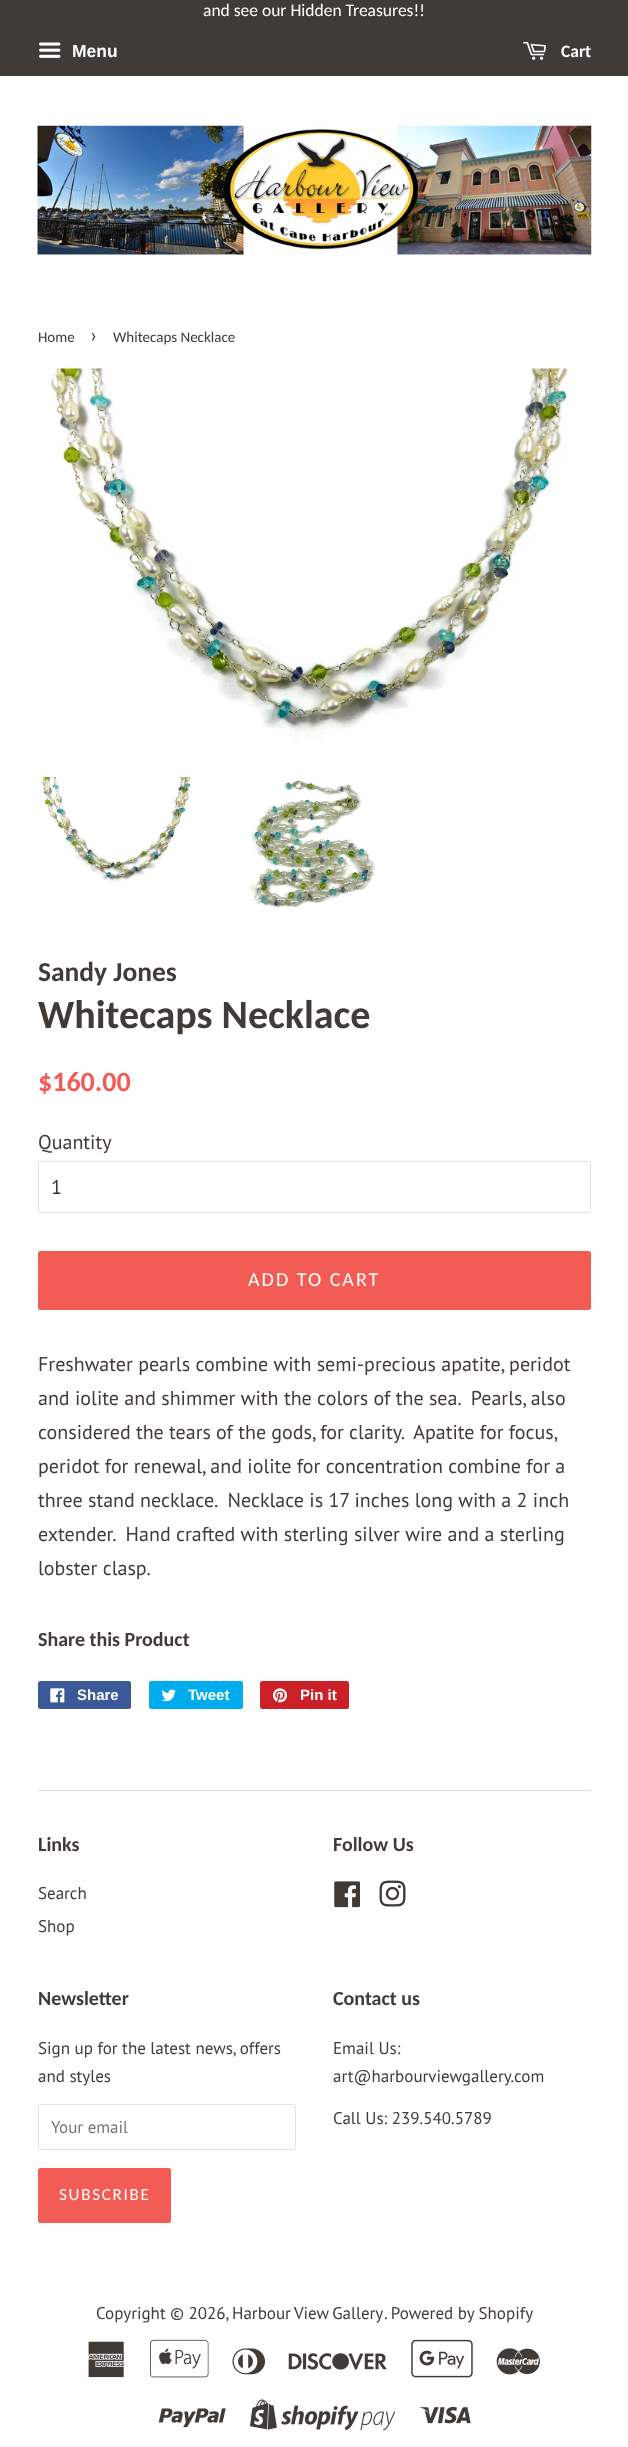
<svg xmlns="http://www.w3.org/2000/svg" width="628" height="2447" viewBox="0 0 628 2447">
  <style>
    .t1 { font: 17.5px Carlito; fill: #fff; }
    .t2 { font: bold 17.5px Liberation Sans; fill: #fff; }
    .t3 { font: bold 17.5px Carlito; fill: #fff; }
    .t4 { font: 15px Carlito; fill: #403b37; }
    .t5 { font: 21px Carlito; fill: #403b37; }
    .t6 { font: bold 27.5px Carlito; fill: #403b37; }
    .t7 { font: bold 40px Carlito; fill: #403b37; }
    .t8 { font: bold 28px Carlito; fill: #f25c54; }
    .t9 { font: 20px PT Sans; fill: #403b37; }
    .t10 { font: 20px PT Sans; fill: #333; }
    .t11 { font: 20px Carlito; letter-spacing: 2px; fill: #fff; }
    .t12 { font: bold 20px Carlito; fill: #403b37; }
    .t13 { font: bold 15px Liberation Sans; fill: #fff; }
    .t14 { font: 17px PT Sans; fill: #403b37; }
    .t15 { font: 17px PT Sans; fill: #757575; }
    .t16 { font: 17px Carlito; letter-spacing: 1.75px; fill: #fff; }
  </style>
  <rect width="100%" height="100%" fill="#fff"/>
  <rect x="0" y="0" width="628" height="76" fill="#403b37"/>
  <text x="203" y="16" class="t1">and see our Hidden Treasures!!</text>
  <image x="39" y="42" width="22" height="16" href="images/1.png"/>
  <text x="72" y="57" class="t2">Menu</text>
  <image x="523" y="41" width="23" height="19" href="images/2.png"/>
  <text x="561" y="57" class="t3">Cart</text>
  <image x="37" y="125" width="555" height="130" href="images/3.png"/>
  <text x="38" y="342" class="t4">Home</text>
  <text x="90" y="342" class="t5">›</text>
  <text x="113" y="342" class="t4">Whitecaps Necklace</text>
  <image x="50" y="368" width="520" height="372" href="images/4.png"/>
  <image x="41" y="777" width="150" height="106" href="images/5.png"/>
  <image x="249" y="780" width="127" height="128" href="images/6.png"/>
  <text x="38" y="981" class="t6">Sandy Jones</text>
  <text x="38" y="1028" class="t7">Whitecaps Necklace</text>
  <text x="38" y="1091" class="t8">$160.00</text>
  <text x="38" y="1149" class="t9">Quantity</text>
  <rect x="38.5" y="1161.5" width="552" height="51" rx="2" fill="none" stroke="#e2e2e1"/>
  <text x="51" y="1194" class="t10">1</text>
  <rect x="38" y="1251" width="553" height="59" rx="2.5" fill="#f25c54"/>
  <text x="248" y="1286" class="t11">ADD TO CART</text>
  <text x="38" y="1371" class="t9">Freshwater pearls combine with semi-precious apatite, peridot</text>
  <text x="38" y="1405" class="t9" xml:space="preserve">and iolite and shimmer with the colors of the sea.  Pearls, also</text>
  <text x="38" y="1439" word-spacing="-0.1" class="t9" xml:space="preserve">considered the tears of the gods, for clarity.  Apatite for focus,</text>
  <text x="38" y="1473" class="t9">peridot for renewal, and iolite for concentration combine for a</text>
  <text x="38" y="1507" class="t9" xml:space="preserve">three stand necklace.  Necklace is 17 inches long with a 2 inch</text>
  <text x="38" y="1541" class="t9" xml:space="preserve">extender.  Hand crafted with sterling silver wire and a sterling</text>
  <text x="38" y="1575" class="t9">lobster clasp.</text>
  <text x="38" y="1646" class="t12">Share this Product</text>
  <rect x="38" y="1681" width="93" height="28" rx="2.5" fill="#3b5998"/>
  <image x="50" y="1688" width="15" height="15" href="images/7.png"/>
  <text x="77" y="1700" class="t13">Share</text>
  <rect x="149" y="1681" width="94" height="28" rx="2.5" fill="#00aced"/>
  <image x="161" y="1689" width="15" height="13" href="images/8.png"/>
  <text x="188" y="1700" class="t13">Tweet</text>
  <rect x="260" y="1681" width="89" height="28" rx="2.5" fill="#cb2027"/>
  <image x="272" y="1688" width="15" height="15" href="images/9.png"/>
  <text x="300" y="1700" class="t13">Pin it</text>
  <rect x="38" y="1790" width="553" height="1" fill="#ddd"/>
  <text x="38" y="1851" class="t12">Links</text>
  <text x="38" y="1899" class="t14">Search</text>
  <text x="38" y="1932" class="t14">Shop</text>
  <text x="333" y="1851" class="t12">Follow Us</text>
  <image x="334" y="1881" width="26" height="27" href="images/10.png"/>
  <image x="379" y="1880" width="27" height="27" href="images/11.png"/>
  <text x="38" y="2005" class="t12">Newsletter</text>
  <text x="38" y="2054" class="t14">Sign up for the latest news, offers</text>
  <text x="38" y="2082" class="t14">and styles</text>
  <rect x="38.5" y="2104.5" width="257" height="45" rx="2" fill="none" stroke="#e2e2e1"/>
  <text x="51" y="2133" class="t15">Your email</text>
  <rect x="38" y="2168" width="133" height="55" rx="2.5" fill="#f25c54"/>
  <text x="59" y="2200" class="t16">SUBSCRIBE</text>
  <text x="333" y="2005" class="t12">Contact us</text>
  <text x="333" y="2054" class="t14">Email Us:</text>
  <text x="333" y="2082" class="t14">art@harbourviewgallery.com</text>
  <text x="333" y="2124" class="t14">Call Us: 239.540.5789</text>
  <text x="96" y="2319" class="t14">Copyright © 2026,</text>
  <text x="232" y="2319" word-spacing="-1" class="t14">Harbour View Gallery</text>
  <text x="384" y="2319" class="t14">. Powered by Shopify</text>
  <image x="88" y="2341" width="36" height="37" href="images/12.png"/>
  <image x="150" y="2339" width="59" height="39" href="images/13.png"/>
  <image x="232" y="2348" width="33" height="27" href="images/14.png"/>
  <image x="288" y="2353" width="99" height="17" href="images/15.png"/>
  <image x="411" y="2339" width="62" height="39" href="images/16.png"/>
  <image x="496" y="2348" width="44" height="27" href="images/17.png"/>
  <image x="158" y="2408" width="68" height="20" href="images/18.png"/>
  <image x="250" y="2399" width="146" height="32" href="images/19.png"/>
  <image x="420" y="2406" width="51" height="18" href="images/20.png"/>
</svg>
